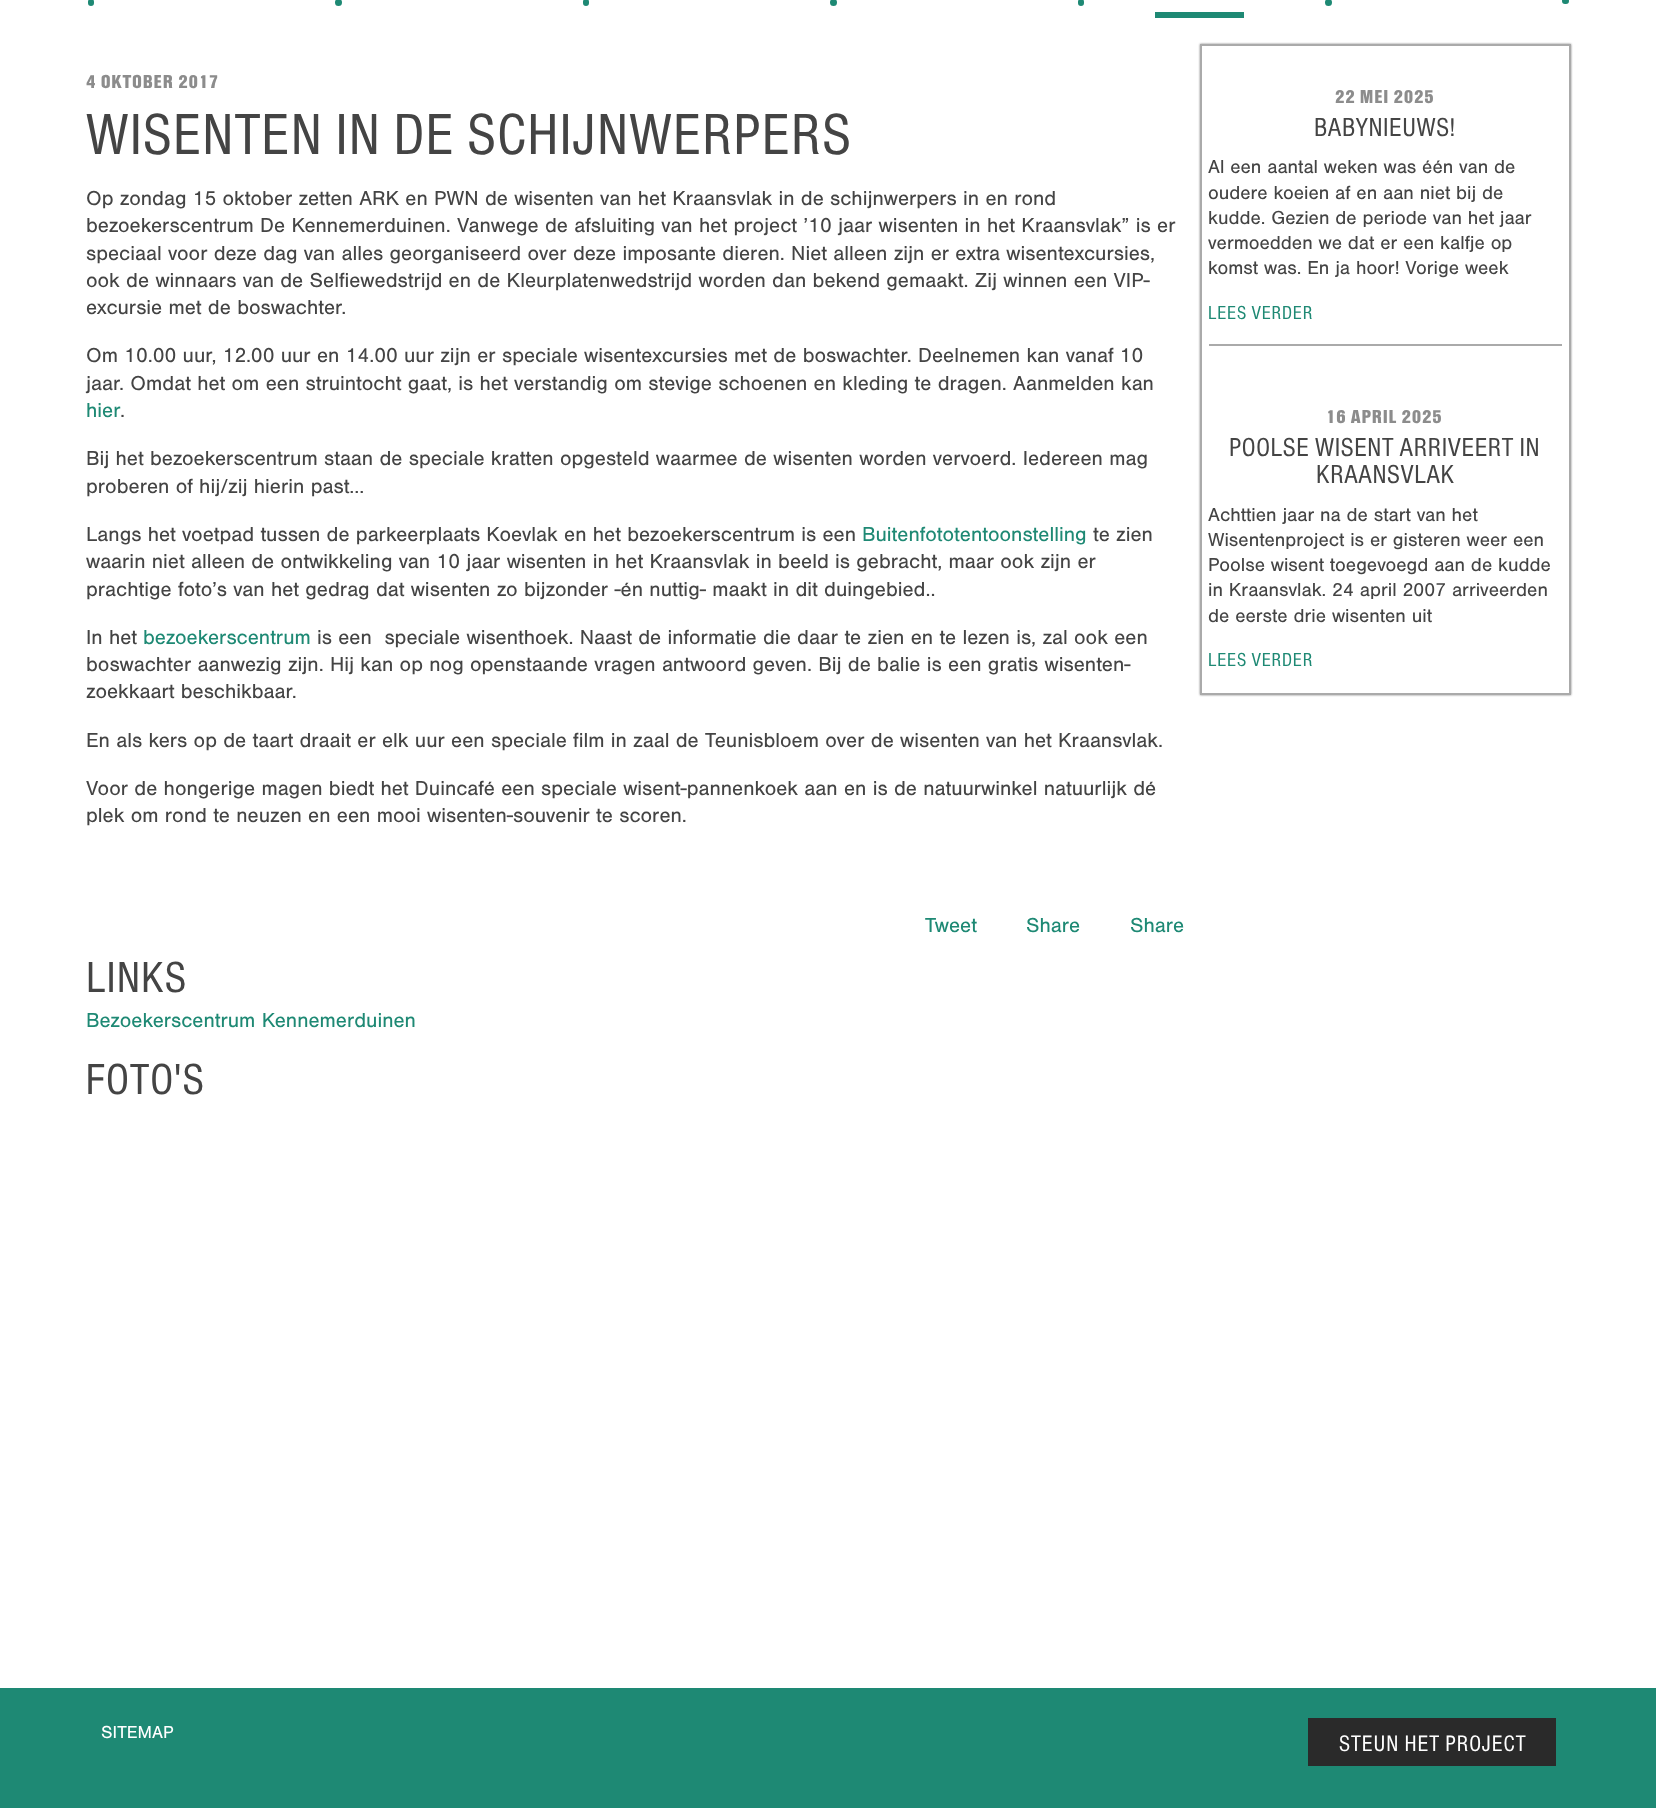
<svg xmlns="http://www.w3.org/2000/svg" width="1656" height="1808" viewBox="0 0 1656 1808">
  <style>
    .t1 { font: 19.5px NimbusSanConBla; letter-spacing: 0.75px; fill: #8c8c8c; }
    .t2 { font: 60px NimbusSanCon; letter-spacing: 1.2px; fill: #444; }
    .t3 { font: 21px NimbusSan; fill: #444; }
    .t4 { font: 21px NimbusSan; fill: #1e8974; }
    .t5 { font: 45px NimbusSanCon; letter-spacing: 1px; fill: #444; }
    .t6 { font: 27px NimbusSanCon; letter-spacing: 0.55px; fill: #444; }
    .t7 { font: 19.5px NimbusSan; fill: #444; }
    .t8 { font: 19.5px NimbusSanCon; letter-spacing: 0.75px; fill: #1e8974; }
    .t9 { font: 18px NimbusSan; fill: #fff; }
    .t10 { font: 23.25px NimbusSanCon; letter-spacing: 0.9px; fill: #fff; }
  </style>
  <defs>
    <clipPath id="clip1"><path d="M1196 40H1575V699H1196ZM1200 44H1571V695H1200Z" clip-rule="evenodd"/></clipPath>
  </defs>
  <rect width="100%" height="100%" fill="#fff"/>
  <rect x="87" y="-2" width="8" height="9" rx="4" fill="#1e8974" stroke="#fff" stroke-width="2"/>
  <circle cx="338.5" cy="2.5" r="4.5" fill="#1e8974" stroke="#fff" stroke-width="2"/>
  <rect x="582" y="-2" width="8" height="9" rx="4" fill="#1e8974" stroke="#fff" stroke-width="2"/>
  <circle cx="833.5" cy="2.5" r="4.5" fill="#1e8974" stroke="#fff" stroke-width="2"/>
  <rect x="1077" y="-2" width="8" height="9" rx="4" fill="#1e8974" stroke="#fff" stroke-width="2"/>
  <rect x="1155" y="12" width="89" height="6" fill="#1e8974"/>
  <circle cx="1328.5" cy="2.5" r="4.5" fill="#1e8974" stroke="#fff" stroke-width="2"/>
  <rect x="1561" y="-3" width="9" height="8" rx="4" fill="#1e8974" stroke="#fff" stroke-width="2"/>
  <text x="86" y="88" class="t1">4 OKTOBER 2017</text>
  <text x="86" y="154" class="t2">WISENTEN IN DE SCHIJNWERPERS</text>
  <text x="86" y="205" class="t3">Op zondag 15 oktober zetten ARK en PWN de wisenten van het Kraansvlak in de schijnwerpers in en rond</text>
  <text x="86" y="232" class="t3">bezoekerscentrum De Kennemerduinen. Vanwege de afsluiting van het project ’10 jaar wisenten in het Kraansvlak” is er</text>
  <text x="86" y="260" class="t3">speciaal voor deze dag van alles georganiseerd over deze imposante dieren. Niet alleen zijn er extra wisentexcursies,</text>
  <text x="86" y="287" class="t3">ook de winnaars van de Selfiewedstrijd en de Kleurplatenwedstrijd worden dan bekend gemaakt. Zij winnen een VIP-</text>
  <text x="86" y="314" class="t3">excursie met de boswachter.</text>
  <text x="86" y="362" class="t3">Om 10.00 uur, 12.00 uur en 14.00 uur zijn er speciale wisentexcursies met de boswachter. Deelnemen kan vanaf 10</text>
  <text x="86" y="390" class="t3">jaar. Omdat het om een struintocht gaat, is het verstandig om stevige schoenen en kleding te dragen. Aanmelden kan</text>
  <text x="86" y="417" class="t4">hier</text>
  <text x="120" y="417" class="t3">.</text>
  <text x="86" y="465" class="t3">Bij het bezoekerscentrum staan de speciale kratten opgesteld waarmee de wisenten worden vervoerd. Iedereen mag</text>
  <text x="86" y="493" class="t3">proberen of hij/zij hierin past…</text>
  <text x="86" y="541" class="t3">Langs het voetpad tussen de parkeerplaats Koevlak en het bezoekerscentrum is een</text>
  <text x="862" y="541" class="t4">Buitenfototentoonstelling</text>
  <text x="1093" y="541" class="t3">te zien</text>
  <text x="86" y="568" class="t3">waarin niet alleen de ontwikkeling van 10 jaar wisenten in het Kraansvlak in beeld is gebracht, maar ook zijn er</text>
  <text x="86" y="596" class="t3">prachtige foto’s van het gedrag dat wisenten zo bijzonder -én nuttig- maakt in dit duingebied..</text>
  <text x="86" y="644" class="t3">In het</text>
  <text x="143" y="644" class="t4">bezoekerscentrum</text>
  <text x="317" y="644" class="t3" xml:space="preserve">is een  speciale wisenthoek. Naast de informatie die daar te zien en te lezen is, zal ook een</text>
  <text x="86" y="671" class="t3">boswachter aanwezig zijn. Hij kan op nog openstaande vragen antwoord geven. Bij de balie is een gratis wisenten-</text>
  <text x="86" y="698" class="t3">zoekkaart beschikbaar.</text>
  <text x="86" y="747" class="t3">En als kers op de taart draait er elk uur een speciale film in zaal de Teunisbloem over de wisenten van het Kraansvlak.</text>
  <text x="86" y="795" class="t3">Voor de hongerige magen biedt het Duincafé een speciale wisent-pannenkoek aan en is de natuurwinkel natuurlijk dé</text>
  <text x="86" y="822" class="t3">plek om rond te neuzen en een mooi wisenten-souvenir te scoren.</text>
  <text x="925" y="932" class="t4">Tweet</text>
  <text x="1026" y="932" class="t4">Share</text>
  <text x="1130" y="932" class="t4">Share</text>
  <text x="86" y="992" class="t5">LINKS</text>
  <text x="86" y="1027" class="t4">Bezoekerscentrum Kennemerduinen</text>
  <text x="86" y="1094" class="t5">FOTO'S</text>
  <g clip-path="url(#clip1)">
    <rect x="1200" y="44" width="371" height="651" fill="#808080" filter="blur(1px)"/>
  </g>
  <rect x="1201" y="45" width="369" height="649" fill="none" stroke="#aaa" stroke-width="2"/>
  <rect x="1209" y="344" width="353" height="2" fill="#aaa"/>
  <text x="1335" y="103" class="t1">22 MEI 2025</text>
  <text x="1314" y="136" class="t6">BABYNIEUWS!</text>
  <text x="1208" y="173" class="t7">Al een aantal weken was één van de</text>
  <text x="1208" y="199" class="t7">oudere koeien af en aan niet bij de</text>
  <text x="1208" y="224" class="t7">kudde. Gezien de periode van het jaar</text>
  <text x="1208" y="249" class="t7">vermoedden we dat er een kalfje op</text>
  <text x="1208" y="274" class="t7">komst was. En ja hoor! Vorige week</text>
  <text x="1208" y="319" class="t8">LEES VERDER</text>
  <text x="1326" y="423" class="t1">16 APRIL 2025</text>
  <text x="1229" y="456" class="t6">POOLSE WISENT ARRIVEERT IN</text>
  <text x="1316" y="483" class="t6">KRAANSVLAK</text>
  <text x="1208" y="521" class="t7">Achttien jaar na de start van het</text>
  <text x="1208" y="546" class="t7">Wisentenproject is er gisteren weer een</text>
  <text x="1208" y="571" class="t7">Poolse wisent toegevoegd aan de kudde</text>
  <text x="1208" y="596" class="t7">in Kraansvlak. 24 april 2007 arriveerden</text>
  <text x="1208" y="622" class="t7">de eerste drie wisenten uit</text>
  <text x="1208" y="666" class="t8">LEES VERDER</text>
  <rect x="0" y="1688" width="1656" height="120" fill="#1e8974"/>
  <text x="101" y="1738" class="t9">SITEMAP</text>
  <rect x="1308" y="1718" width="248" height="48" fill="#2a2a2a"/>
  <text x="1339" y="1751" class="t10">STEUN HET PROJECT</text>
</svg>
